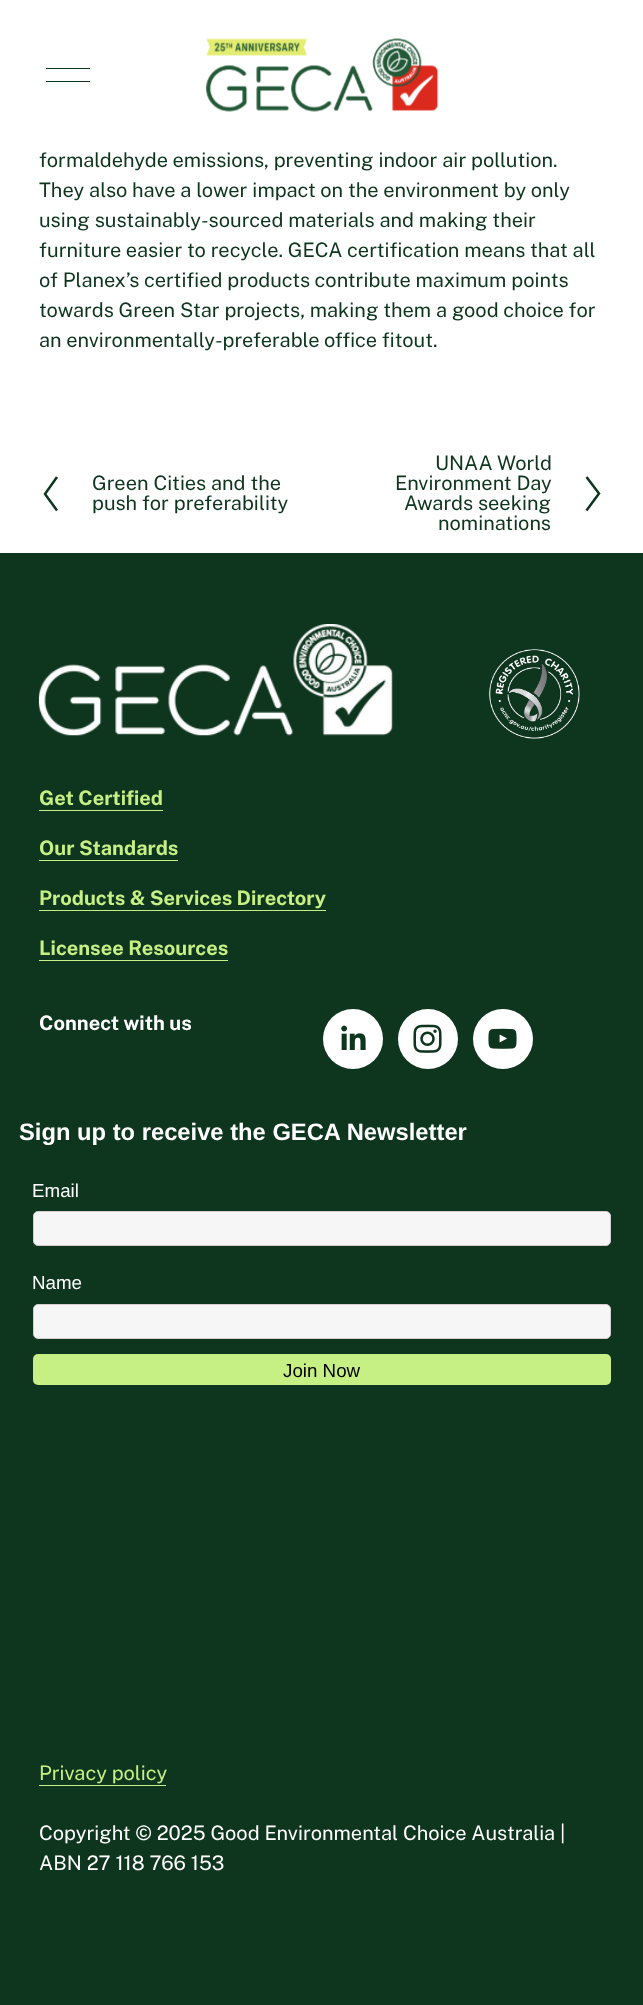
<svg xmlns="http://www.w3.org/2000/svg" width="643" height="2005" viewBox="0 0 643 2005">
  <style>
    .t1 { font: 20px Public Sans; fill: #0e351e; }
    .t2 { font: bold 20px Public Sans; fill: #c6ef84; }
    .t3 { font: bold 20px Public Sans; fill: #fff; }
    .t4 { font: bold 23.75px Liberation Sans; fill: #fff; }
    .t5 { font: 18.75px Liberation Sans; fill: #fff; }
    .t6 { font: 18.75px Liberation Sans; fill: #000; }
    .t7 { font: 20px Public Sans; fill: #c6ef84; }
    .t8 { font: 20px Public Sans; fill: #fff; }
  </style>
  <rect width="100%" height="100%" fill="#fff"/>
  <rect x="46" y="68" width="44" height="1" fill="#0e351e"/>
  <rect x="46" y="81" width="44" height="1" fill="#0e351e"/>
  <image x="206" y="38" width="233" height="74" href="images/1.png"/>
  <text x="39" y="167" class="t1">formaldehyde emissions, preventing indoor air pollution.</text>
  <text x="39" y="197" class="t1">They also have a lower impact on the environment by only</text>
  <text x="39" y="227" class="t1">using sustainably-sourced materials and making their</text>
  <text x="39" y="257" class="t1">furniture easier to recycle. GECA certification means that all</text>
  <text x="39" y="287" class="t1">of Planex’s certified products contribute maximum points</text>
  <text x="39" y="317" class="t1">towards Green Star projects, making them a good choice for</text>
  <text x="39" y="347" class="t1">an environmentally-preferable office fitout.</text>
  <path d="M57 510.5L45 494L57 477" fill="none" stroke="#0e351e" stroke-width="2.5"/>
  <text x="92" y="490" class="t1">Green Cities and the</text>
  <text x="92" y="510" class="t1">push for preferability</text>
  <text x="435" y="470" class="t1">UNAA World</text>
  <text x="395" y="490" class="t1">Environment Day</text>
  <text x="404" y="510" class="t1">Awards seeking</text>
  <text x="438" y="530" class="t1">nominations</text>
  <path d="M586.5 477L599 493.5L586.5 510.5" fill="none" stroke="#0e351e" stroke-width="2.5"/>
  <rect x="0" y="553" width="643" height="1452" fill="#0e351e"/>
  <image x="38" y="624" width="355" height="112" href="images/2.png"/>
  <image x="488" y="649" width="92" height="90" href="images/3.png"/>
  <text x="39" y="805" class="t2">Get Certified</text>
  <rect x="39" y="810" width="124" height="1" fill="#c6ef84"/>
  <text x="39" y="855" class="t2">Our Standards</text>
  <rect x="39" y="860" width="139" height="1" fill="#c6ef84"/>
  <text x="39" y="905" class="t2">Products &amp; Services Directory</text>
  <rect x="39" y="910" width="287" height="1" fill="#c6ef84"/>
  <text x="39" y="955" class="t2">Licensee Resources</text>
  <rect x="39" y="960" width="189" height="1" fill="#c6ef84"/>
  <text x="39" y="1030" class="t3">Connect with us</text>
  <circle cx="353" cy="1039" r="30" fill="#fff"/>
  <image x="341" y="1025" width="25" height="25" href="images/4.png"/>
  <circle cx="428" cy="1039" r="30" fill="#fff"/>
  <image x="413" y="1024" width="29" height="29" href="images/5.png"/>
  <circle cx="503" cy="1039" r="30" fill="#fff"/>
  <image x="488" y="1028" width="29" height="21" href="images/6.png"/>
  <text x="19" y="1140" class="t4">Sign up to receive the GECA Newsletter</text>
  <text x="32" y="1197" class="t5">Email</text>
  <rect x="33.5" y="1211.5" width="577" height="34" rx="4.5" fill="#f6f6f6" stroke="#d6cdcd"/>
  <text x="32" y="1289" class="t5">Name</text>
  <rect x="33.5" y="1304.5" width="577" height="34" rx="4.5" fill="#f6f6f6" stroke="#d6cdcd"/>
  <rect x="33" y="1354" width="578" height="31" rx="5" fill="#c6ef84"/>
  <text x="283" y="1377" class="t6">Join Now</text>
  <text x="39" y="1780" class="t7">Privacy policy</text>
  <rect x="39" y="1785" width="127" height="1" fill="#c6ef84"/>
  <text x="39" y="1840" class="t8">Copyright © 2025 Good Environmental Choice Australia |</text>
  <text x="39" y="1870" class="t8">ABN 27 118 766 153</text>
</svg>
